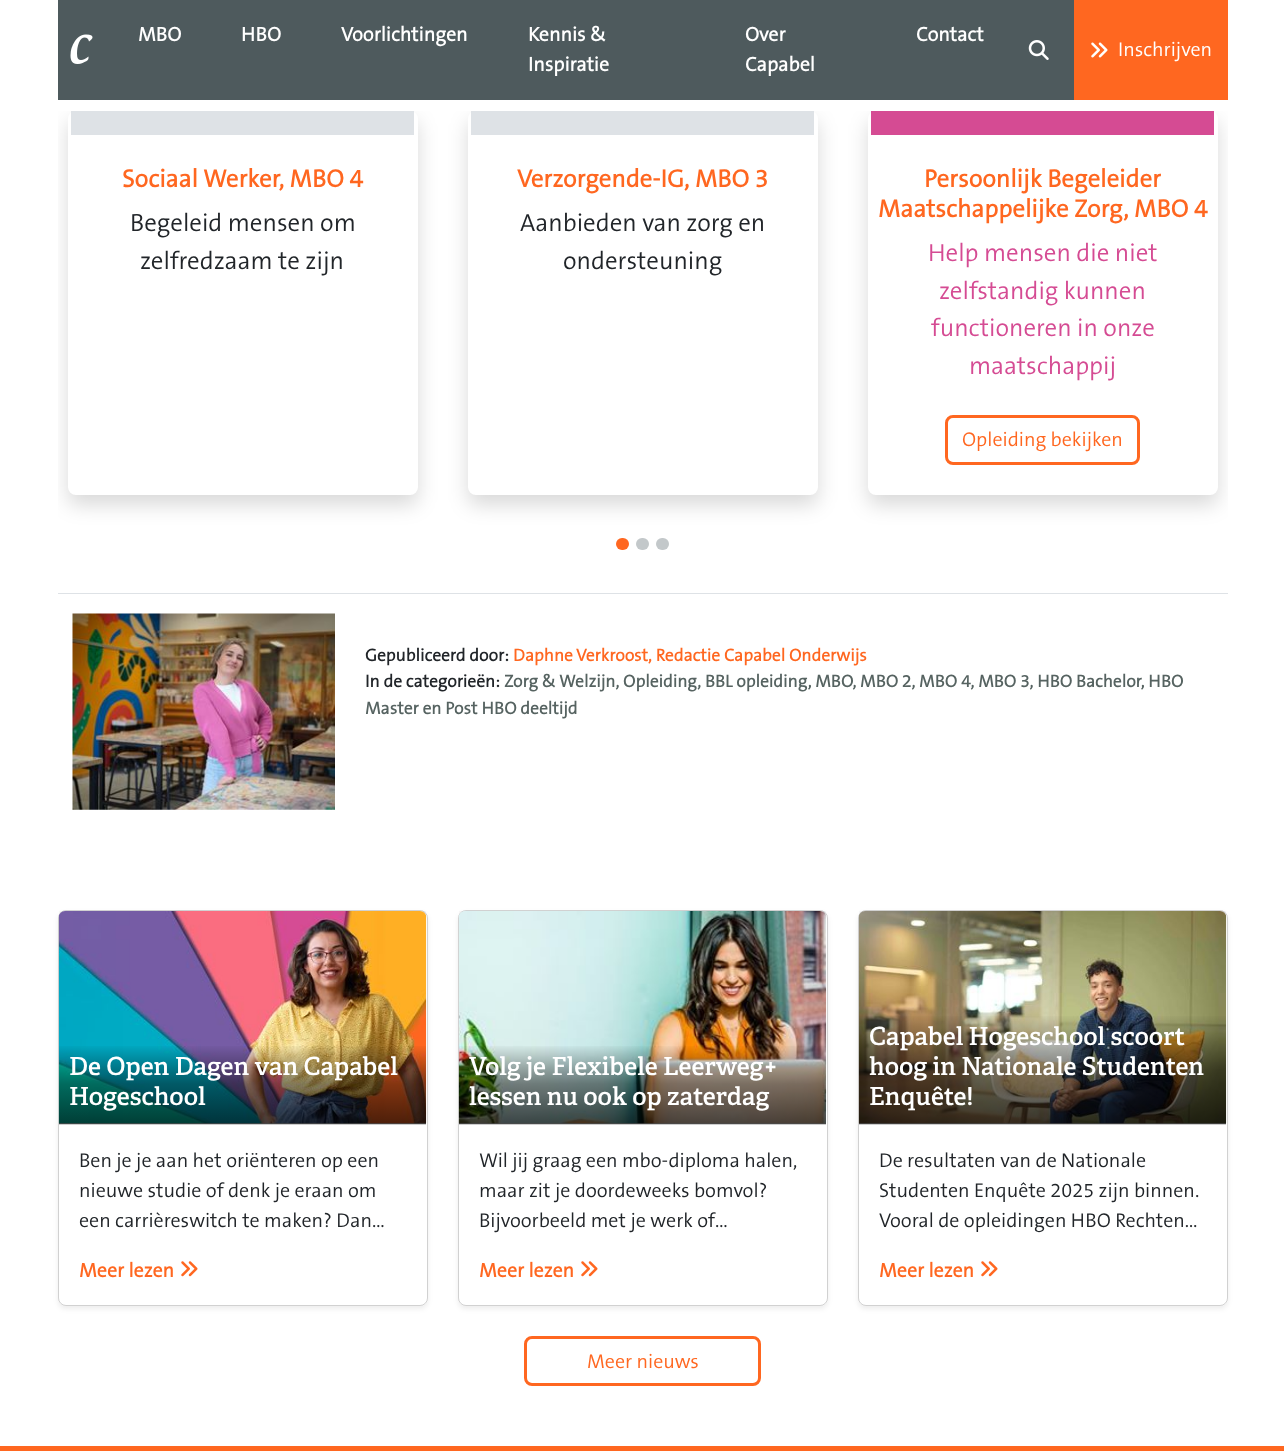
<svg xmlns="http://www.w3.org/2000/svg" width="1284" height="1451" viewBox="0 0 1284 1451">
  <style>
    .t1 { font: bold 20px 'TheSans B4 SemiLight'; fill: #fff; }
    .t2 { font: 300 20px 'TheSans B4 SemiLight'; fill: #fff; }
    .t3 { font: bold 25px 'TheSans B4 SemiLight'; fill: #ff6720; }
    .t4 { font: 300 25px 'TheSans B4 SemiLight'; fill: #212529; }
    .t5 { font: 300 25px 'TheSans B4 SemiLight'; fill: #d54b93; }
    .t6 { font: 300 20px 'TheSans B4 SemiLight'; fill: #ff6720; }
    .t7 { font: bold 17.5px 'TheSans B4 SemiLight'; fill: #212529; }
    .t8 { font: bold 17.5px 'TheSans B4 SemiLight'; fill: #ff6720; }
    .t9 { font: bold 17.5px 'TheSans B4 SemiLight'; fill: #566361; }
    .t10 { font: 600 25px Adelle; fill: #fff; }
    .t11 { font: 300 20px 'TheSans B4 SemiLight'; fill: #212529; }
    .t12 { font: bold 20px 'TheSans B4 SemiLight'; fill: #ff6720; }
  </style>
  <defs>
    <clipPath id="clip1"><rect x="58" y="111" width="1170" height="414"/></clipPath>
    <linearGradient id="g1" gradientUnits="userSpaceOnUse" x1="243" y1="1124" x2="243" y2="1044"><stop offset="0" stop-color="#000" stop-opacity="0.7"/><stop offset="0.5" stop-color="#000" stop-opacity="0.48"/><stop offset="0.7" stop-color="#000" stop-opacity="0.3"/><stop offset="1" stop-color="#000" stop-opacity="0"/></linearGradient>
    <linearGradient id="g2" gradientUnits="userSpaceOnUse" x1="643" y1="1124" x2="643" y2="1044"><stop offset="0" stop-color="#000" stop-opacity="0.7"/><stop offset="0.5" stop-color="#000" stop-opacity="0.48"/><stop offset="0.7" stop-color="#000" stop-opacity="0.3"/><stop offset="1" stop-color="#000" stop-opacity="0"/></linearGradient>
    <linearGradient id="g3" gradientUnits="userSpaceOnUse" x1="1043" y1="1124" x2="1043" y2="1014"><stop offset="0" stop-color="#000" stop-opacity="0.7"/><stop offset="0.5" stop-color="#000" stop-opacity="0.48"/><stop offset="0.7" stop-color="#000" stop-opacity="0.3"/><stop offset="1" stop-color="#000" stop-opacity="0"/></linearGradient>
  </defs>
  <rect width="100%" height="100%" fill="#fff"/>
  <g clip-path="url(#clip1)">
    <rect x="68" y="121" width="350" height="384" rx="8" fill="#00000026" filter="blur(10px)"/>
    <rect x="468" y="121" width="350" height="384" rx="8" fill="#00000026" filter="blur(10px)"/>
    <rect x="868" y="121" width="350" height="384" rx="8" fill="#00000026" filter="blur(10px)"/>
  </g>
  <rect x="58" y="0" width="1016" height="100" fill="#4e5a5d"/>
  <image x="70" y="34" width="23" height="30" href="images/1.png"/>
  <text x="138" y="41" class="t1">MBO</text>
  <text x="241" y="41" class="t1">HBO</text>
  <text x="341" y="41" class="t1">Voorlichtingen</text>
  <text x="528" y="41" class="t1">Kennis &amp;</text>
  <text x="528" y="71" class="t1">Inspiratie</text>
  <text x="745" y="41" class="t1">Over</text>
  <text x="745" y="71" class="t1">Capabel</text>
  <text x="916" y="41" class="t1">Contact</text>
  <image x="1028" y="40" width="21" height="20" href="images/2.png"/>
  <rect x="1074" y="0" width="154" height="100" fill="#ff6720"/>
  <image x="1091" y="42" width="17" height="16" href="images/3.png"/>
  <text x="1118" y="56" class="t2">Inschrijven</text>
  <rect x="68" y="111" width="350" height="384" rx="8" fill="#fff"/>
  <rect x="71" y="111" width="343" height="24" fill="#dee2e6"/>
  <text x="122" y="187" class="t3">Sociaal Werker, MBO 4</text>
  <text x="130" y="231" class="t4">Begeleid mensen om</text>
  <text x="140" y="269" class="t4">zelfredzaam te zijn</text>
  <rect x="468" y="111" width="350" height="384" rx="8" fill="#fff"/>
  <rect x="471" y="111" width="343" height="24" fill="#dee2e6"/>
  <text x="517" y="187" class="t3">Verzorgende-IG, MBO 3</text>
  <text x="520" y="231" class="t4">Aanbieden van zorg en</text>
  <text x="563" y="269" class="t4">ondersteuning</text>
  <rect x="868" y="111" width="350" height="384" rx="8" fill="#fff"/>
  <rect x="871" y="111" width="343" height="24" fill="#d54b93"/>
  <text x="924" y="187" class="t3">Persoonlijk Begeleider</text>
  <text x="878" y="217" class="t3">Maatschappelijke Zorg, MBO 4</text>
  <text x="928" y="261" class="t5">Help mensen die niet</text>
  <text x="939" y="299" class="t5">zelfstandig kunnen</text>
  <text x="931" y="336" class="t5">functioneren in onze</text>
  <text x="969" y="374" class="t5">maatschappij</text>
  <rect x="946.5" y="416.5" width="192" height="47" rx="6.5" fill="none" stroke="#ff6720" stroke-width="3"/>
  <text x="962" y="446" class="t6">Opleiding bekijken</text>
  <rect x="616" y="538" width="13" height="12" rx="6" fill="#ff6720"/>
  <rect x="636" y="538" width="13" height="12" rx="6" fill="#c3c8ca"/>
  <rect x="656" y="538" width="13" height="12" rx="6" fill="#c3c8ca"/>
  <rect x="58" y="593" width="1170" height="1" fill="#dee2e6"/>
  <image x="72" y="613" width="263" height="197" href="images/4.png"/>
  <text x="365" y="661" class="t7">Gepubliceerd door:</text>
  <text x="513" y="661" class="t8">Daphne Verkroost, Redactie Capabel Onderwijs</text>
  <text x="365" y="687" class="t7">In de categorieën:</text>
  <text x="504" y="687" class="t9">Zorg &amp; Welzijn, Opleiding, BBL opleiding, MBO, MBO 2, MBO 4, MBO 3, HBO Bachelor, HBO</text>
  <text x="365" y="714" class="t9">Master en Post HBO deeltijd</text>
  <rect x="58" y="913" width="370" height="396" rx="8" fill="#00000012" filter="blur(2.5px)"/>
  <rect x="58" y="910" width="370" height="396" rx="8" fill="#fff"/>
  <rect x="58.5" y="910.5" width="369" height="395" rx="7.5" fill="none" stroke="#0000002e"/>
  <rect x="59" y="911" width="367" height="213" fill="#21252908"/>
  <rect x="59" y="1124" width="367" height="1" fill="#cdcdcd"/>
  <image x="58" y="911" width="369" height="213" href="images/5.png"/>
  <rect x="59" y="1046" width="367" height="78" fill="url(#g1)"/>
  <text x="69" y="1075" class="t10">De Open Dagen van Capabel</text>
  <text x="69" y="1105" class="t10">Hogeschool</text>
  <text x="79" y="1167" class="t11">Ben je je aan het oriënteren op een</text>
  <text x="79" y="1197" class="t11">nieuwe studie of denk je eraan om</text>
  <text x="79" y="1227" class="t11">een carrièreswitch te maken? Dan…</text>
  <text x="79" y="1277" class="t12">Meer lezen</text>
  <image x="181" y="1261" width="17" height="16" href="images/6.png"/>
  <rect x="458" y="913" width="370" height="396" rx="8" fill="#00000012" filter="blur(2.5px)"/>
  <rect x="458" y="910" width="370" height="396" rx="8" fill="#fff"/>
  <rect x="458.5" y="910.5" width="369" height="395" rx="7.5" fill="none" stroke="#0000002e"/>
  <rect x="459" y="911" width="367" height="213" fill="#21252908"/>
  <rect x="459" y="1124" width="367" height="1" fill="#cdcdcd"/>
  <image x="458" y="911" width="369" height="213" href="images/7.png"/>
  <rect x="459" y="1046" width="367" height="78" fill="url(#g2)"/>
  <text x="469" y="1075" class="t10">Volg je Flexibele Leerweg+</text>
  <text x="469" y="1105" class="t10">lessen nu ook op zaterdag</text>
  <text x="479" y="1167" class="t11">Wil jij graag een mbo-diploma halen,</text>
  <text x="479" y="1197" class="t11">maar zit je doordeweeks bomvol?</text>
  <text x="479" y="1227" class="t11">Bijvoorbeeld met je werk of…</text>
  <text x="479" y="1277" class="t12">Meer lezen</text>
  <image x="581" y="1261" width="17" height="16" href="images/6.png"/>
  <rect x="858" y="913" width="370" height="396" rx="8" fill="#00000012" filter="blur(2.5px)"/>
  <rect x="858" y="910" width="370" height="396" rx="8" fill="#fff"/>
  <rect x="858.5" y="910.5" width="369" height="395" rx="7.5" fill="none" stroke="#0000002e"/>
  <rect x="859" y="911" width="367" height="213" fill="#21252908"/>
  <rect x="859" y="1124" width="367" height="1" fill="#cdcdcd"/>
  <image x="858" y="911" width="369" height="213" href="images/8.png"/>
  <rect x="859" y="1016" width="367" height="108" fill="url(#g3)"/>
  <text x="869" y="1045" class="t10">Capabel Hogeschool scoort</text>
  <text x="869" y="1075" class="t10">hoog in Nationale Studenten</text>
  <text x="869" y="1105" class="t10">Enquête!</text>
  <text x="879" y="1167" class="t11">De resultaten van de Nationale</text>
  <text x="879" y="1197" class="t11">Studenten Enquête 2025 zijn binnen.</text>
  <text x="879" y="1227" class="t11">Vooral de opleidingen HBO Rechten…</text>
  <text x="879" y="1277" class="t12">Meer lezen</text>
  <image x="981" y="1261" width="17" height="16" href="images/6.png"/>
  <rect x="525.5" y="1337.5" width="234" height="47" rx="6.5" fill="none" stroke="#ff6720" stroke-width="3"/>
  <text x="587" y="1368" class="t6">Meer nieuws</text>
  <rect x="0" y="1446" width="1284" height="5" fill="#ff6720"/>
</svg>
